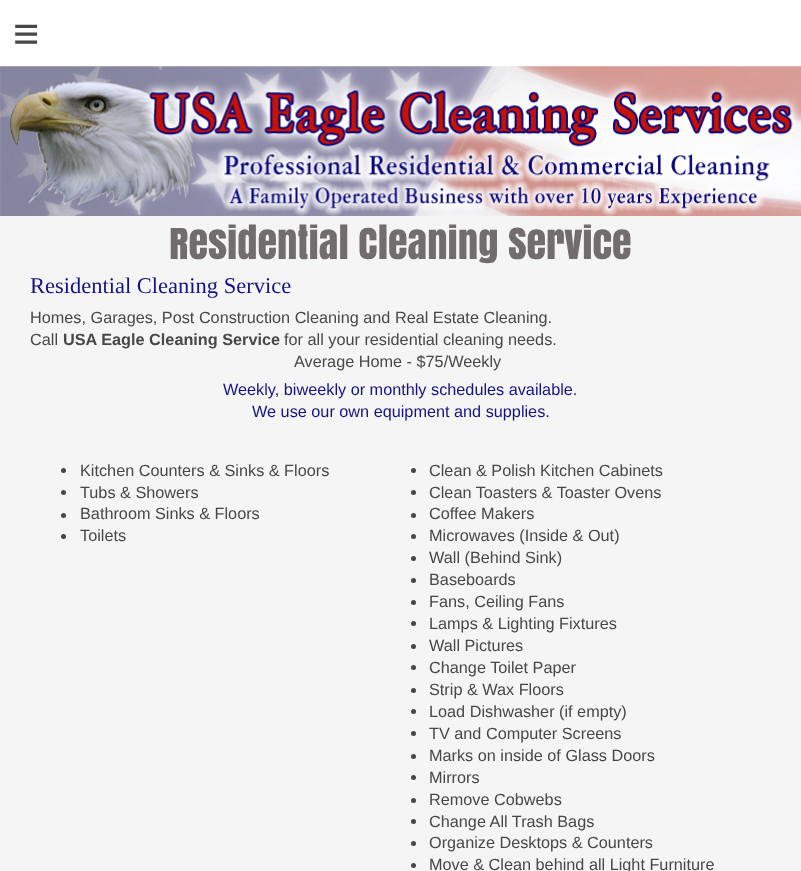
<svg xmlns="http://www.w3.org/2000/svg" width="801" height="871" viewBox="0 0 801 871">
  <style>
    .t1 { font: 45px Liberation Sans; letter-spacing: 13px; fill: #474747; }
    .t2 { font: 40px Anton; fill: #716d6e; }
    .t3 { font: 22.5px Liberation Serif; fill: #151384; }
    .t4 { font: 16.25px Liberation Sans; fill: #474747; }
    .t5 { font: bold 16.25px Liberation Sans; fill: #474747; }
    .t6 { font: 16.25px Liberation Sans; fill: #151384; }
  </style>
  <rect width="100%" height="100%" fill="#989898"/>
  <rect x="0" y="0" width="801" height="67" fill="#fff"/>
  <text x="13" y="49" class="t1">≡</text>
  <image x="0" y="66" width="801" height="151" href="images/1.png"/>
  <rect x="0" y="216" width="801" height="655" fill="#ffffffe6"/>
  <text x="169" y="259" class="t2">Residential Cleaning Service</text>
  <text x="30" y="293" class="t3">Residential Cleaning Service</text>
  <text x="30" y="323" class="t4">Homes, Garages, Post Construction Cleaning and Real Estate Cleaning.</text>
  <text x="30" y="345" class="t4">Call</text>
  <text x="63" y="345" class="t5">USA Eagle Cleaning Service</text>
  <text x="284" y="345" class="t4">for all your residential cleaning needs.</text>
  <text x="294" y="367" class="t4">Average Home - $75/Weekly</text>
  <text x="223" y="395" class="t6">Weekly, biweekly or monthly schedules available.</text>
  <text x="252" y="417" class="t6">We use our own equipment and supplies.</text>
  <circle cx="63.5" cy="470.5" r="2.5" fill="#474747"/>
  <text x="80" y="476" class="t4">Kitchen Counters &amp; Sinks &amp; Floors</text>
  <circle cx="63.5" cy="492.5" r="2.5" fill="#474747"/>
  <text x="80" y="498" class="t4">Tubs &amp; Showers</text>
  <circle cx="63.5" cy="515.5" r="2.5" fill="#474747"/>
  <text x="80" y="519" class="t4">Bathroom Sinks &amp; Floors</text>
  <circle cx="63.5" cy="536.5" r="2.5" fill="#474747"/>
  <text x="80" y="541" class="t4">Toilets</text>
  <circle cx="413.5" cy="470.5" r="2.5" fill="#474747"/>
  <text x="429" y="476" class="t4">Clean &amp; Polish Kitchen Cabinets</text>
  <circle cx="413.5" cy="492.5" r="2.5" fill="#474747"/>
  <text x="429" y="498" class="t4">Clean Toasters &amp; Toaster Ovens</text>
  <circle cx="413.5" cy="515.5" r="2.5" fill="#474747"/>
  <text x="429" y="519" class="t4">Coffee Makers</text>
  <circle cx="413.5" cy="536.5" r="2.5" fill="#474747"/>
  <text x="429" y="541" class="t4">Microwaves (Inside &amp; Out)</text>
  <circle cx="413.5" cy="558.5" r="2.5" fill="#474747"/>
  <text x="429" y="563" class="t4">Wall (Behind Sink)</text>
  <circle cx="413.5" cy="580.5" r="2.5" fill="#474747"/>
  <text x="429" y="585" class="t4">Baseboards</text>
  <circle cx="413.5" cy="602.5" r="2.5" fill="#474747"/>
  <text x="429" y="607" class="t4">Fans, Ceiling Fans</text>
  <circle cx="413.5" cy="623.5" r="2.5" fill="#474747"/>
  <text x="429" y="629" class="t4">Lamps &amp; Lighting Fixtures</text>
  <circle cx="413.5" cy="646.5" r="2.5" fill="#474747"/>
  <text x="429" y="651" class="t4">Wall Pictures</text>
  <circle cx="413.5" cy="667.5" r="2.5" fill="#474747"/>
  <text x="429" y="673" class="t4">Change Toilet Paper</text>
  <circle cx="413.5" cy="690.5" r="2.5" fill="#474747"/>
  <text x="429" y="695" class="t4">Strip &amp; Wax Floors</text>
  <circle cx="413.5" cy="711.5" r="2.5" fill="#474747"/>
  <text x="429" y="717" class="t4">Load Dishwasher (if empty)</text>
  <circle cx="413.5" cy="733.5" r="2.5" fill="#474747"/>
  <text x="429" y="739" class="t4">TV and Computer Screens</text>
  <circle cx="413.5" cy="756.5" r="2.5" fill="#474747"/>
  <text x="429" y="761" class="t4">Marks on inside of Glass Doors</text>
  <circle cx="413.5" cy="777.5" r="2.5" fill="#474747"/>
  <text x="429" y="783" class="t4">Mirrors</text>
  <circle cx="413.5" cy="800.5" r="2.5" fill="#474747"/>
  <text x="429" y="805" class="t4">Remove Cobwebs</text>
  <circle cx="413.5" cy="821.5" r="2.5" fill="#474747"/>
  <text x="429" y="827" class="t4">Change All Trash Bags</text>
  <circle cx="413.5" cy="843.5" r="2.5" fill="#474747"/>
  <text x="429" y="848" class="t4">Organize Desktops &amp; Counters</text>
  <circle cx="413.5" cy="865.5" r="2.5" fill="#474747"/>
  <text x="429" y="870" class="t4">Move &amp; Clean behind all Light Furniture</text>
</svg>
